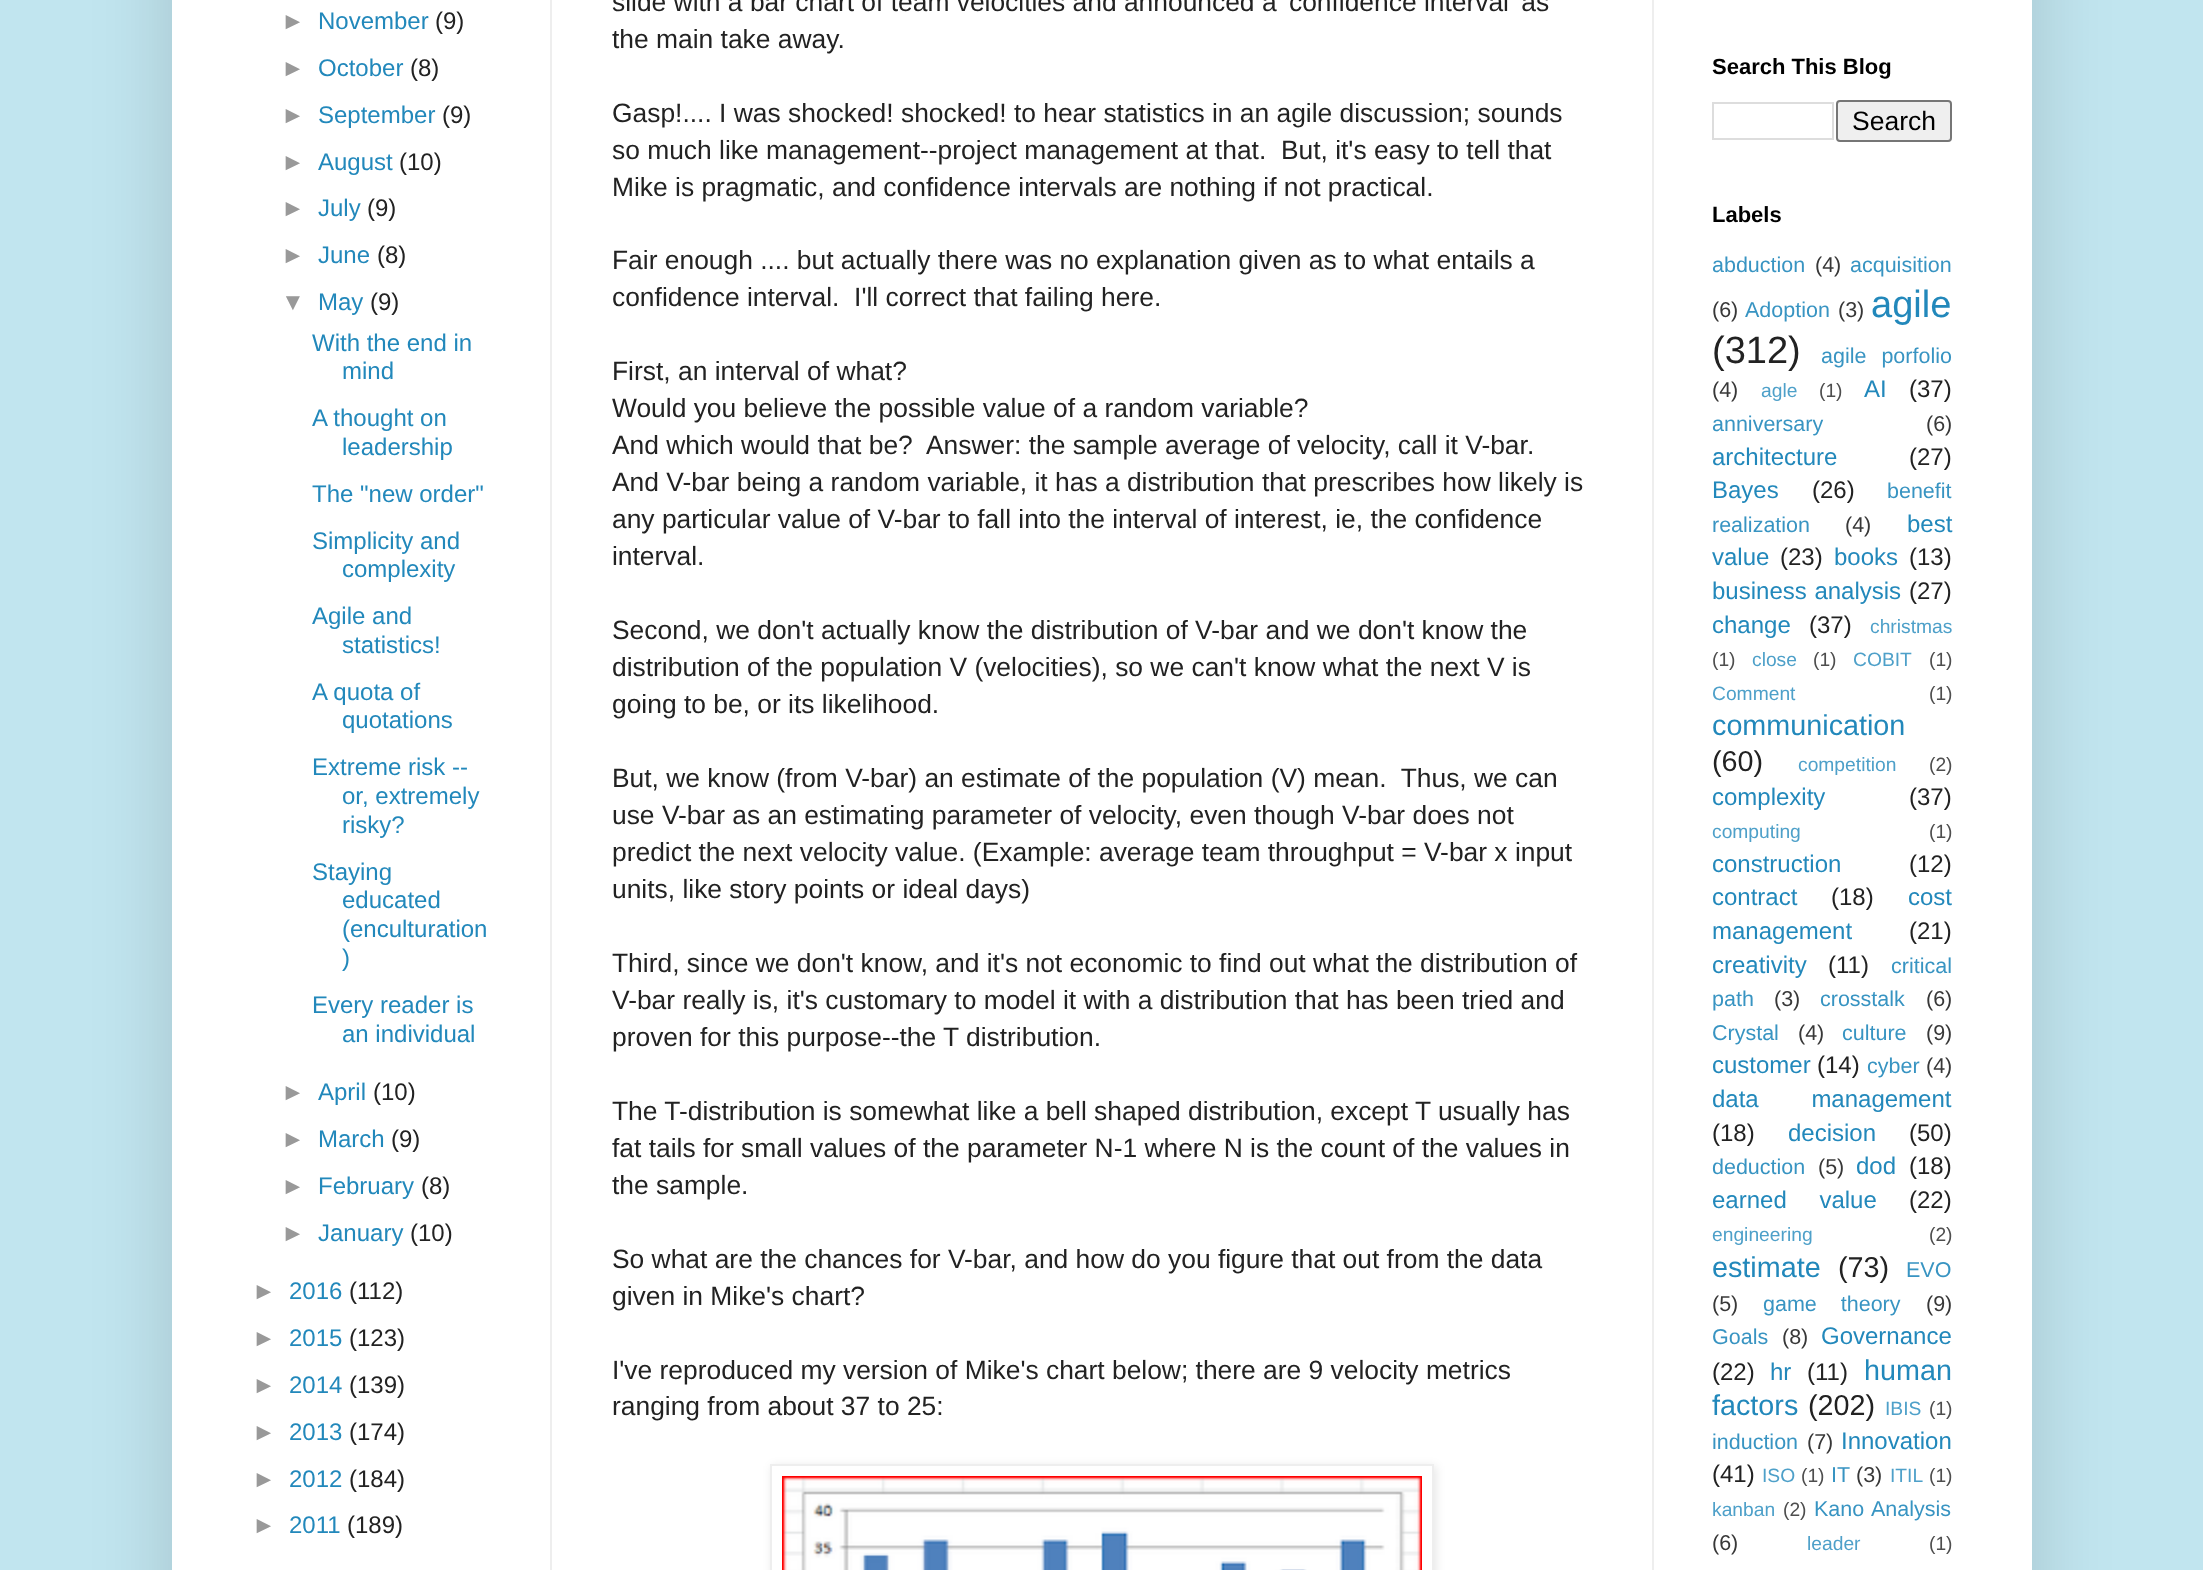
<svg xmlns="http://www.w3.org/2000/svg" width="2203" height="1570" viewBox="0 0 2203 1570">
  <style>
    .t1 { font: 24px Liberation Sans; fill: #999; }
    .t2 { font: 24px Liberation Sans; fill: #28b; }
    .t3 { font: 24px Liberation Sans; fill: #222; }
    .t4 { font: 26.4px Liberation Sans; fill: #222; }
    .t5 { font: bold 22px Liberation Sans; fill: #000; }
    .t6 { font: 26.5px Liberation Sans; fill: #000; }
    .t7 { font: 21.5px Liberation Sans; fill: #3894c2; }
    .t8 { font: 21.5px Liberation Sans; fill: #383838; }
    .t9 { font: 38px Liberation Sans; fill: #28b; }
    .t10 { font: 38px Liberation Sans; fill: #222; }
    .t11 { font: 19.25px Liberation Sans; fill: #4ea0c9; }
    .t12 { font: 19.25px Liberation Sans; fill: #4e4e4e; }
    .t13 { font: 28.75px Liberation Sans; fill: #28b; }
    .t14 { font: 28.75px Liberation Sans; fill: #222; }
  </style>
  <defs>
    <clipPath id="clip1"><path d="M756 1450H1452V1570H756ZM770 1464H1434V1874H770Z" clip-rule="evenodd"/></clipPath>
  </defs>
  <rect width="100%" height="100%" fill="#c1e5ef"/>
  <rect x="172" y="-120" width="1860" height="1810" fill="#00000026" filter="blur(40px)"/>
  <rect x="172" y="0" width="1860" height="1570" fill="#fff"/>
  <text x="281" y="29" class="t1">►</text>
  <text x="318" y="29" class="t2">November</text>
  <text x="435" y="29" class="t3">(9)</text>
  <text x="281" y="76" class="t1">►</text>
  <text x="318" y="76" class="t2">October</text>
  <text x="410" y="76" class="t3">(8)</text>
  <text x="281" y="123" class="t1">►</text>
  <text x="318" y="123" class="t2">September</text>
  <text x="442" y="123" class="t3">(9)</text>
  <text x="281" y="170" class="t1">►</text>
  <text x="318" y="170" class="t2">August</text>
  <text x="399" y="170" class="t3">(10)</text>
  <text x="281" y="216" class="t1">►</text>
  <text x="318" y="216" class="t2">July</text>
  <text x="367" y="216" class="t3">(9)</text>
  <text x="281" y="263" class="t1">►</text>
  <text x="318" y="263" class="t2">June</text>
  <text x="377" y="263" class="t3">(8)</text>
  <text x="281" y="310" class="t1">▼</text>
  <text x="318" y="310" class="t2">May</text>
  <text x="370" y="310" class="t3">(9)</text>
  <text x="312" y="351" class="t2">With the end in</text>
  <text x="342" y="379" class="t2">mind</text>
  <text x="312" y="426" class="t2">A thought on</text>
  <text x="342" y="455" class="t2">leadership</text>
  <text x="312" y="502" class="t2">The "new order"</text>
  <text x="312" y="549" class="t2">Simplicity and</text>
  <text x="342" y="577" class="t2">complexity</text>
  <text x="312" y="624" class="t2">Agile and</text>
  <text x="342" y="653" class="t2">statistics!</text>
  <text x="312" y="700" class="t2">A quota of</text>
  <text x="342" y="728" class="t2">quotations</text>
  <text x="312" y="775" class="t2">Extreme risk --</text>
  <text x="342" y="804" class="t2">or, extremely</text>
  <text x="342" y="833" class="t2">risky?</text>
  <text x="312" y="880" class="t2">Staying</text>
  <text x="342" y="908" class="t2">educated</text>
  <text x="342" y="937" class="t2">(enculturation</text>
  <text x="342" y="966" class="t2">)</text>
  <text x="312" y="1013" class="t2">Every reader is</text>
  <text x="342" y="1042" class="t2">an individual</text>
  <text x="281" y="1100" class="t1">►</text>
  <text x="318" y="1100" class="t2">April</text>
  <text x="373" y="1100" class="t3">(10)</text>
  <text x="281" y="1147" class="t1">►</text>
  <text x="318" y="1147" class="t2">March</text>
  <text x="391" y="1147" class="t3">(9)</text>
  <text x="281" y="1194" class="t1">►</text>
  <text x="318" y="1194" class="t2">February</text>
  <text x="421" y="1194" class="t3">(8)</text>
  <text x="281" y="1241" class="t1">►</text>
  <text x="318" y="1241" class="t2">January</text>
  <text x="410" y="1241" class="t3">(10)</text>
  <text x="252" y="1299" class="t1">►</text>
  <text x="289" y="1299" class="t2">2016</text>
  <text x="349" y="1299" class="t3">(112)</text>
  <text x="252" y="1346" class="t1">►</text>
  <text x="289" y="1346" class="t2">2015</text>
  <text x="349" y="1346" class="t3">(123)</text>
  <text x="252" y="1393" class="t1">►</text>
  <text x="289" y="1393" class="t2">2014</text>
  <text x="349" y="1393" class="t3">(139)</text>
  <text x="252" y="1440" class="t1">►</text>
  <text x="289" y="1440" class="t2">2013</text>
  <text x="349" y="1440" class="t3">(174)</text>
  <text x="252" y="1487" class="t1">►</text>
  <text x="289" y="1487" class="t2">2012</text>
  <text x="349" y="1487" class="t3">(184)</text>
  <text x="252" y="1533" class="t1">►</text>
  <text x="289" y="1533" class="t2">2011</text>
  <text x="347" y="1533" class="t3">(189)</text>
  <text x="612" y="11" class="t4">slide with a bar chart of team velocities and announced a 'confidence interval' as</text>
  <text x="612" y="48" class="t4">the main take away.</text>
  <text x="612" y="122" class="t4">Gasp!.... I was shocked! shocked! to hear statistics in an agile discussion; sounds</text>
  <text x="612" y="159" class="t4" xml:space="preserve">so much like management--project management at that.  But, it's easy to tell that</text>
  <text x="612" y="196" class="t4">Mike is pragmatic, and confidence intervals are nothing if not practical.</text>
  <text x="612" y="269" class="t4">Fair enough .... but actually there was no explanation given as to what entails a</text>
  <text x="612" y="306" class="t4" xml:space="preserve">confidence interval.  I'll correct that failing here.</text>
  <text x="612" y="380" class="t4">First, an interval of what?</text>
  <text x="612" y="417" class="t4">Would you believe the possible value of a random variable?</text>
  <text x="612" y="454" class="t4" xml:space="preserve">And which would that be?  Answer: the sample average of velocity, call it V-bar.</text>
  <text x="612" y="491" class="t4">And V-bar being a random variable, it has a distribution that prescribes how likely is</text>
  <text x="612" y="528" class="t4">any particular value of V-bar to fall into the interval of interest, ie, the confidence</text>
  <text x="612" y="565" class="t4">interval.</text>
  <text x="612" y="639" class="t4">Second, we don't actually know the distribution of V-bar and we don't know the</text>
  <text x="612" y="676" class="t4">distribution of the population V (velocities), so we can't know what the next V is</text>
  <text x="612" y="713" class="t4">going to be, or its likelihood.</text>
  <text x="612" y="787" class="t4" xml:space="preserve">But, we know (from V-bar) an estimate of the population (V) mean.  Thus, we can</text>
  <text x="612" y="824" class="t4">use V-bar as an estimating parameter of velocity, even though V-bar does not</text>
  <text x="612" y="861" class="t4">predict the next velocity value. (Example: average team throughput = V-bar x input</text>
  <text x="612" y="898" class="t4">units, like story points or ideal days)</text>
  <text x="612" y="972" class="t4">Third, since we don't know, and it's not economic to find out what the distribution of</text>
  <text x="612" y="1009" class="t4">V-bar really is, it's customary to model it with a distribution that has been tried and</text>
  <text x="612" y="1046" class="t4">proven for this purpose--the T distribution.</text>
  <text x="612" y="1120" class="t4">The T-distribution is somewhat like a bell shaped distribution, except T usually has</text>
  <text x="612" y="1157" class="t4">fat tails for small values of the parameter N-1 where N is the count of the values in</text>
  <text x="612" y="1194" class="t4">the sample.</text>
  <text x="612" y="1268" class="t4">So what are the chances for V-bar, and how do you figure that out from the data</text>
  <text x="612" y="1305" class="t4">given in Mike's chart?</text>
  <text x="612" y="1379" class="t4">I've reproduced my version of Mike's chart below; there are 9 velocity metrics</text>
  <text x="612" y="1415" class="t4">ranging from about 37 to 25:</text>
  <g clip-path="url(#clip1)">
    <rect x="772" y="1466" width="664" height="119" fill="#0000001a" filter="blur(5px)"/>
  </g>
  <rect x="771" y="1465" width="662" height="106" fill="none" stroke="#eee" stroke-width="2"/>
  <image x="782" y="1476" width="640" height="94" href="images/1.png"/>
  <text x="1712" y="74" class="t5">Search This Blog</text>
  <rect x="1713" y="103" width="120" height="36" fill="none" stroke="#ddd" stroke-width="2"/>
  <rect x="1837" y="101" width="114" height="40" rx="3" fill="#efefef" stroke="#767676" stroke-width="2"/>
  <text x="1852" y="130" class="t6">Search</text>
  <text x="1712" y="222" class="t5">Labels</text>
  <text x="1712" y="272" class="t7">abduction</text>
  <text x="1815" y="272" class="t8">(4)</text>
  <text x="1850" y="272" class="t7">acquisition</text>
  <text x="1712" y="317" class="t8">(6)</text>
  <text x="1745" y="317" class="t7">Adoption</text>
  <text x="1838" y="317" class="t8">(3)</text>
  <text x="1871" y="317" class="t9">agile</text>
  <text x="1712" y="363" class="t10">(312)</text>
  <text x="1821" y="363" word-spacing="9" class="t7">agile porfolio</text>
  <text x="1712" y="397" class="t8">(4)</text>
  <text x="1761" y="397" class="t11">agle</text>
  <text x="1819" y="397" class="t12">(1)</text>
  <text x="1864" y="397" class="t2">AI</text>
  <text x="1909" y="397" class="t3">(37)</text>
  <text x="1712" y="431" class="t7">anniversary</text>
  <text x="1926" y="431" class="t8">(6)</text>
  <text x="1712" y="465" class="t2">architecture</text>
  <text x="1909" y="465" class="t3">(27)</text>
  <text x="1712" y="498" class="t2">Bayes</text>
  <text x="1812" y="498" class="t3">(26)</text>
  <text x="1887" y="498" class="t7">benefit</text>
  <text x="1712" y="532" class="t7">realization</text>
  <text x="1845" y="532" class="t8">(4)</text>
  <text x="1907" y="532" class="t2">best</text>
  <text x="1712" y="565" class="t2">value</text>
  <text x="1780" y="565" class="t3">(23)</text>
  <text x="1834" y="565" class="t2">books</text>
  <text x="1909" y="565" class="t3">(13)</text>
  <text x="1712" y="599" word-spacing="1" class="t2">business analysis</text>
  <text x="1909" y="599" class="t3">(27)</text>
  <text x="1712" y="633" class="t2">change</text>
  <text x="1809" y="633" class="t3">(37)</text>
  <text x="1870" y="633" class="t11">christmas</text>
  <text x="1712" y="666" class="t12">(1)</text>
  <text x="1752" y="666" class="t11">close</text>
  <text x="1813" y="666" class="t12">(1)</text>
  <text x="1853" y="666" class="t11">COBIT</text>
  <text x="1929" y="666" class="t12">(1)</text>
  <text x="1712" y="700" class="t11">Comment</text>
  <text x="1929" y="700" class="t12">(1)</text>
  <text x="1712" y="735" class="t13">communication</text>
  <text x="1712" y="771" class="t14">(60)</text>
  <text x="1798" y="771" class="t11">competition</text>
  <text x="1929" y="771" class="t12">(2)</text>
  <text x="1712" y="805" class="t2">complexity</text>
  <text x="1909" y="805" class="t3">(37)</text>
  <text x="1712" y="838" class="t11">computing</text>
  <text x="1929" y="838" class="t12">(1)</text>
  <text x="1712" y="872" class="t2">construction</text>
  <text x="1909" y="872" class="t3">(12)</text>
  <text x="1712" y="905" class="t2">contract</text>
  <text x="1831" y="905" class="t3">(18)</text>
  <text x="1908" y="905" class="t2">cost</text>
  <text x="1712" y="939" class="t2">management</text>
  <text x="1909" y="939" class="t3">(21)</text>
  <text x="1712" y="973" class="t2">creativity</text>
  <text x="1828" y="973" class="t3">(11)</text>
  <text x="1891" y="973" class="t7">critical</text>
  <text x="1712" y="1006" class="t7">path</text>
  <text x="1774" y="1006" class="t8">(3)</text>
  <text x="1820" y="1006" class="t7">crosstalk</text>
  <text x="1926" y="1006" class="t8">(6)</text>
  <text x="1712" y="1040" class="t7">Crystal</text>
  <text x="1798" y="1040" class="t8">(4)</text>
  <text x="1842" y="1040" class="t7">culture</text>
  <text x="1926" y="1040" class="t8">(9)</text>
  <text x="1712" y="1073" class="t2">customer</text>
  <text x="1817" y="1073" class="t3">(14)</text>
  <text x="1867" y="1073" class="t7">cyber</text>
  <text x="1926" y="1073" class="t8">(4)</text>
  <text x="1712" y="1107" word-spacing="46" class="t2">data management</text>
  <text x="1712" y="1141" class="t3">(18)</text>
  <text x="1788" y="1141" class="t2">decision</text>
  <text x="1909" y="1141" class="t3">(50)</text>
  <text x="1712" y="1174" class="t7">deduction</text>
  <text x="1818" y="1174" class="t8">(5)</text>
  <text x="1856" y="1174" class="t2">dod</text>
  <text x="1909" y="1174" class="t3">(18)</text>
  <text x="1712" y="1208" word-spacing="26" class="t2">earned value</text>
  <text x="1909" y="1208" class="t3">(22)</text>
  <text x="1712" y="1241" class="t11">engineering</text>
  <text x="1929" y="1241" class="t12">(2)</text>
  <text x="1712" y="1277" class="t13">estimate</text>
  <text x="1838" y="1277" class="t14">(73)</text>
  <text x="1906" y="1277" class="t7">EVO</text>
  <text x="1712" y="1311" class="t8">(5)</text>
  <text x="1763" y="1311" word-spacing="18" class="t7">game theory</text>
  <text x="1926" y="1311" class="t8">(9)</text>
  <text x="1712" y="1344" class="t7">Goals</text>
  <text x="1782" y="1344" class="t8">(8)</text>
  <text x="1821" y="1344" class="t2">Governance</text>
  <text x="1712" y="1380" class="t3">(22)</text>
  <text x="1770" y="1380" class="t2">hr</text>
  <text x="1807" y="1380" class="t3">(11)</text>
  <text x="1864" y="1380" class="t13">human</text>
  <text x="1712" y="1415" class="t13">factors</text>
  <text x="1808" y="1415" class="t14">(202)</text>
  <text x="1885" y="1415" class="t11">IBIS</text>
  <text x="1929" y="1415" class="t12">(1)</text>
  <text x="1712" y="1449" class="t7">induction</text>
  <text x="1807" y="1449" class="t8">(7)</text>
  <text x="1841" y="1449" class="t2">Innovation</text>
  <text x="1712" y="1482" class="t3">(41)</text>
  <text x="1762" y="1482" class="t11">ISO</text>
  <text x="1801" y="1482" class="t12">(1)</text>
  <text x="1831" y="1482" class="t7">IT</text>
  <text x="1856" y="1482" class="t8">(3)</text>
  <text x="1890" y="1482" class="t11">ITIL</text>
  <text x="1929" y="1482" class="t12">(1)</text>
  <text x="1712" y="1516" class="t11">kanban</text>
  <text x="1783" y="1516" class="t12">(2)</text>
  <text x="1814" y="1516" word-spacing="2" class="t7">Kano Analysis</text>
  <text x="1712" y="1550" class="t8">(6)</text>
  <text x="1807" y="1550" class="t11">leader</text>
  <text x="1929" y="1550" class="t12">(1)</text>
  <rect x="550" y="0" width="2" height="1570" fill="#eee"/>
  <rect x="1652" y="0" width="2" height="1570" fill="#eee"/>
</svg>
